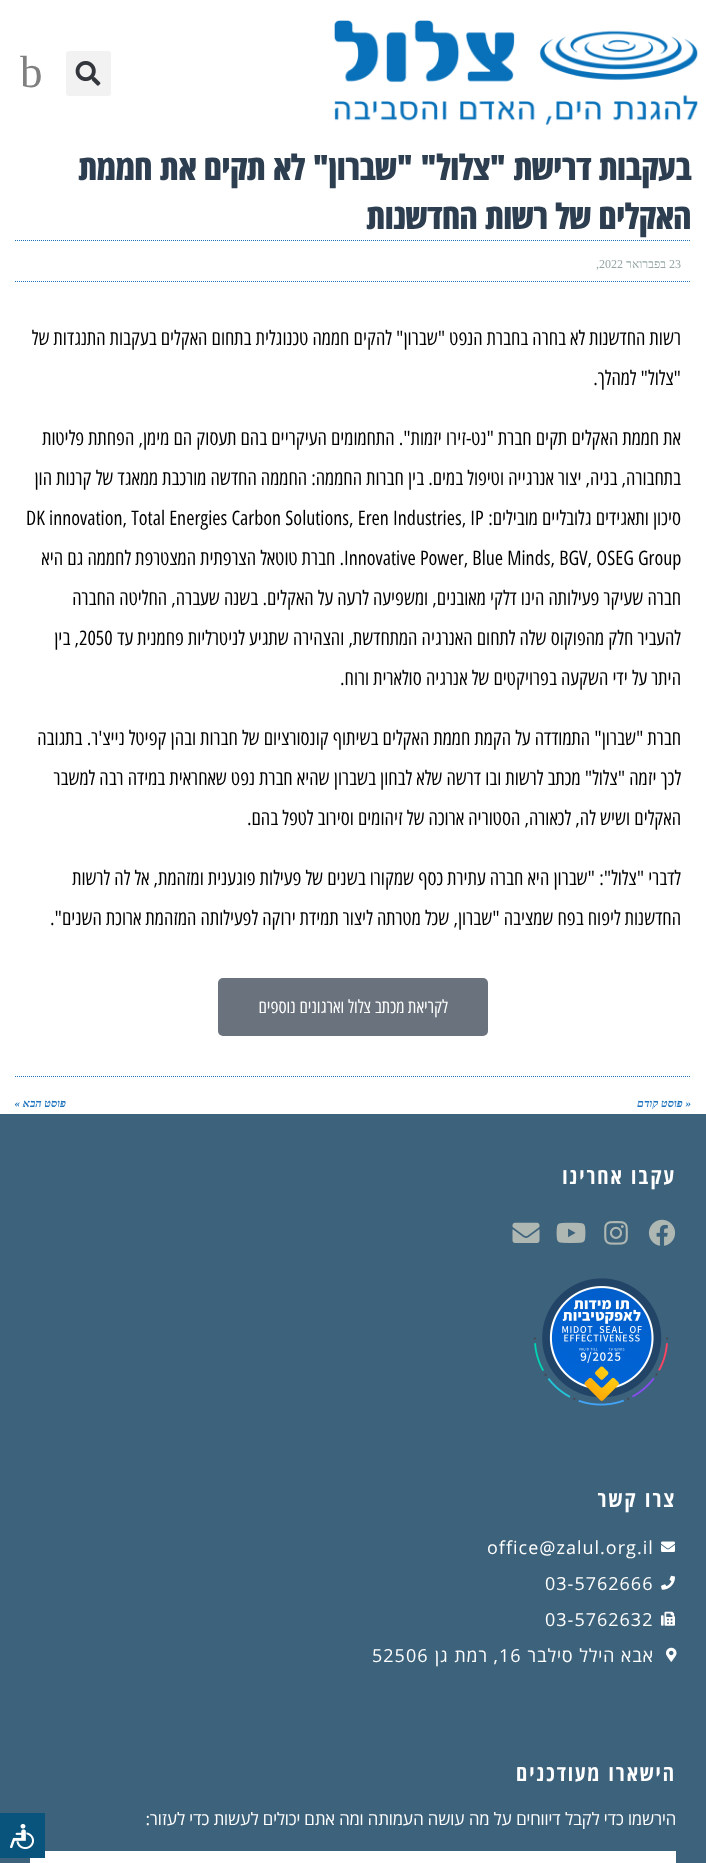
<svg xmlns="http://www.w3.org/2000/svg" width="706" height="1863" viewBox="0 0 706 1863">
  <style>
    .t1 { font: 45px Liberation Serif; fill: #808080; }
    .t2 { font: 800 35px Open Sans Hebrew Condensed; letter-spacing: -0.5px; direction: rtl; fill: #2c3e50; }
    .t3 { font: 12px Tinos; fill: #95a5a6; }
    .t4 { font: 12px Tinos; direction: rtl; fill: #95a5a6; }
    .t5 { font: 20px Open Sans Hebrew Condensed; direction: rtl; fill: #000; }
    .t6 { font: 20px Open Sans Hebrew Condensed; fill: #000; }
    .t7 { font: 18px Open Sans Hebrew Condensed; direction: rtl; fill: #fff; }
    .t8 { font: italic bold 11px Tinos; direction: rtl; fill: #1e73be; }
    .t9 { font: bold 22px Open Sans Hebrew Condensed; letter-spacing: 2px; direction: rtl; fill: #fff; }
    .t10 { font: 18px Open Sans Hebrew; letter-spacing: 1px; fill: #fff; }
    .t11 { font: 18px Open Sans Hebrew; letter-spacing: 1px; direction: rtl; fill: #fff; }
    .t12 { font: 17px Open Sans Hebrew; letter-spacing: -0.1px; direction: rtl; fill: #fff; }
  </style>
  <rect width="100%" height="100%" fill="#fff"/>
  <image x="334" y="20" width="364" height="106" href="images/1.png"/>
  <rect x="66" y="51" width="45" height="45" rx="3" fill="#f2f2f2"/>
  <image x="75" y="61" width="26" height="25" href="images/2.png"/>
  <text x="20" y="87" class="t1">b</text>
  <text x="691" y="180" class="t2">בעקבות דרישת "צלול" "שברון" לא תקים את חממת</text>
  <text x="691" y="229" class="t2">האקלים של רשות החדשנות</text>
  <path d="M15 240.5H691" fill="none" stroke="#1e73be" stroke-dasharray="1 1"/>
  <path d="M15 281.5H691" fill="none" stroke="#1e73be" stroke-dasharray="1 1"/>
  <text x="669" y="268" class="t3">23</text>
  <text x="666" y="268" class="t4">בפברואר</text>
  <text x="599" y="268" class="t3">2022</text>
  <text x="596" y="268" class="t3">,</text>
  <text x="681" y="345" class="t5">רשות החדשנות לא בחרה בחברת הנפט "שברון" להקים חממה טכנוגלית בתחום האקלים בעקבות התנגדות של</text>
  <text x="681" y="385" class="t5">"צלול" למהלך.</text>
  <text x="681" y="445" class="t5">את חממת האקלים תקים חברת "נט-זירו יזמות". התחמומים העיקריים בהם תעסוק הם מימן, הפחתת פליטות</text>
  <text x="681" y="485" class="t5">בתחבורה, בניה, יצור אנרגייה וטיפול במים. בין חברות החממה: החממה החדשה מורכבת ממאגד של קרנות הון</text>
  <text x="681" y="525" class="t5">סיכון ותאגידים גלובליים מובילים:</text>
  <text x="26" y="525" class="t6">DK innovation, Total Energies Carbon Solutions, Eren Industries, IP</text>
  <text x="344" y="565" class="t6">Innovative Power, Blue Minds, BGV, OSEG Group</text>
  <text x="344" y="565" class="t5">. חברת טוטאל הצרפתית המצטרפת לחממה גם היא</text>
  <text x="681" y="605" class="t5">חברה שעיקר פעילותה הינו דלקי מאובנים, ומשפיעה לרעה על האקלים. בשנה שעברה, החליטה החברה</text>
  <text x="681" y="645" class="t5">להעביר חלק מהפוקוס שלה לתחום האנרגיה המתחדשת, והצהירה שתגיע לניטרליות פחמנית עד</text>
  <text x="79" y="645" class="t6">2050</text>
  <text x="79" y="645" class="t5">, בין</text>
  <text x="681" y="685" class="t5">היתר על ידי השקעה בפרויקטים של אנרגיה סולארית ורוח.</text>
  <text x="681" y="745" class="t5">חברת "שברון" התמודדה על הקמת חממת האקלים בשיתוף קונסורציום של חברות ובהן קפיטל נייצ'ר. בתגובה</text>
  <text x="681" y="785" class="t5">לכך יזמה "צלול" מכתב לרשות ובו דרשה שלא לבחון בשברון שהיא חברת נפט שאחראית במידה רבה למשבר</text>
  <text x="681" y="825" class="t5">האקלים ושיש לה, לכאורה, הסטוריה ארוכה של זיהומים וסירוב לטפל בהם.</text>
  <text x="681" y="885" class="t5">לדברי "צלול": "שברון היא חברה עתירת כסף שמקורו בשנים של פעילות פוגענית ומזהמת, אל לה לרשות</text>
  <text x="681" y="925" class="t5">החדשנות ליפוח בפח שמציבה "שברון, שכל מטרתה ליצור תמידת ירוקה לפעילותה המזהמת ארוכת השנים".</text>
  <rect x="218" y="978" width="270" height="58" rx="5" fill="#69727d"/>
  <text x="448" y="1013" class="t7">לקריאת מכתב צלול וארגונים נוספים</text>
  <path d="M15 1076.5H691" fill="none" stroke="#1e73be" stroke-dasharray="1 1"/>
  <text x="691" y="1107" class="t8">« פוסט קודם</text>
  <text x="66" y="1107" class="t8">פוסט הבא »</text>
  <rect x="0" y="1114" width="706" height="749" fill="#3d627c"/>
  <text x="676" y="1184" class="t9">עקבו אחרינו</text>
  <image x="648" y="1219" width="28" height="27" href="images/3.png"/>
  <image x="604" y="1221" width="24" height="24" href="images/4.png"/>
  <image x="556" y="1222" width="30" height="21" href="images/5.png"/>
  <image x="512" y="1222" width="28" height="21" href="images/6.png"/>
  <image x="533" y="1278" width="136" height="128" href="images/7.png"/>
  <text x="676" y="1507" class="t9">צרו קשר</text>
  <image x="661" y="1541" width="14" height="11" href="images/8.png"/>
  <text x="487" y="1554" class="t10">office@zalul.org.il</text>
  <image x="661" y="1575" width="14" height="15" href="images/9.png"/>
  <text x="545" y="1590" class="t10">03-5762666</text>
  <image x="661" y="1611" width="14" height="15" href="images/10.png"/>
  <text x="545" y="1626" class="t10">03-5762632</text>
  <image x="666" y="1647" width="11" height="15" href="images/11.png"/>
  <text x="654" y="1662" class="t11">אבא הילל סילבר</text>
  <text x="499" y="1662" class="t10">16</text>
  <text x="499" y="1662" class="t11">, רמת גן</text>
  <text x="372" y="1662" class="t10">52506</text>
  <text x="676" y="1781" class="t9">הישארו מעודכנים</text>
  <text x="676" y="1825" class="t12">הירשמו כדי לקבל דיווחים על מה עושה העמותה ומה אתם יכולים לעשות כדי לעזור:</text>
  <rect x="30" y="1851" width="646" height="12" fill="#fff"/>
  <rect x="0" y="1813" width="45" height="45" fill="#09547c"/>
  <image x="10" y="1824" width="24" height="25" href="images/12.png"/>
</svg>
